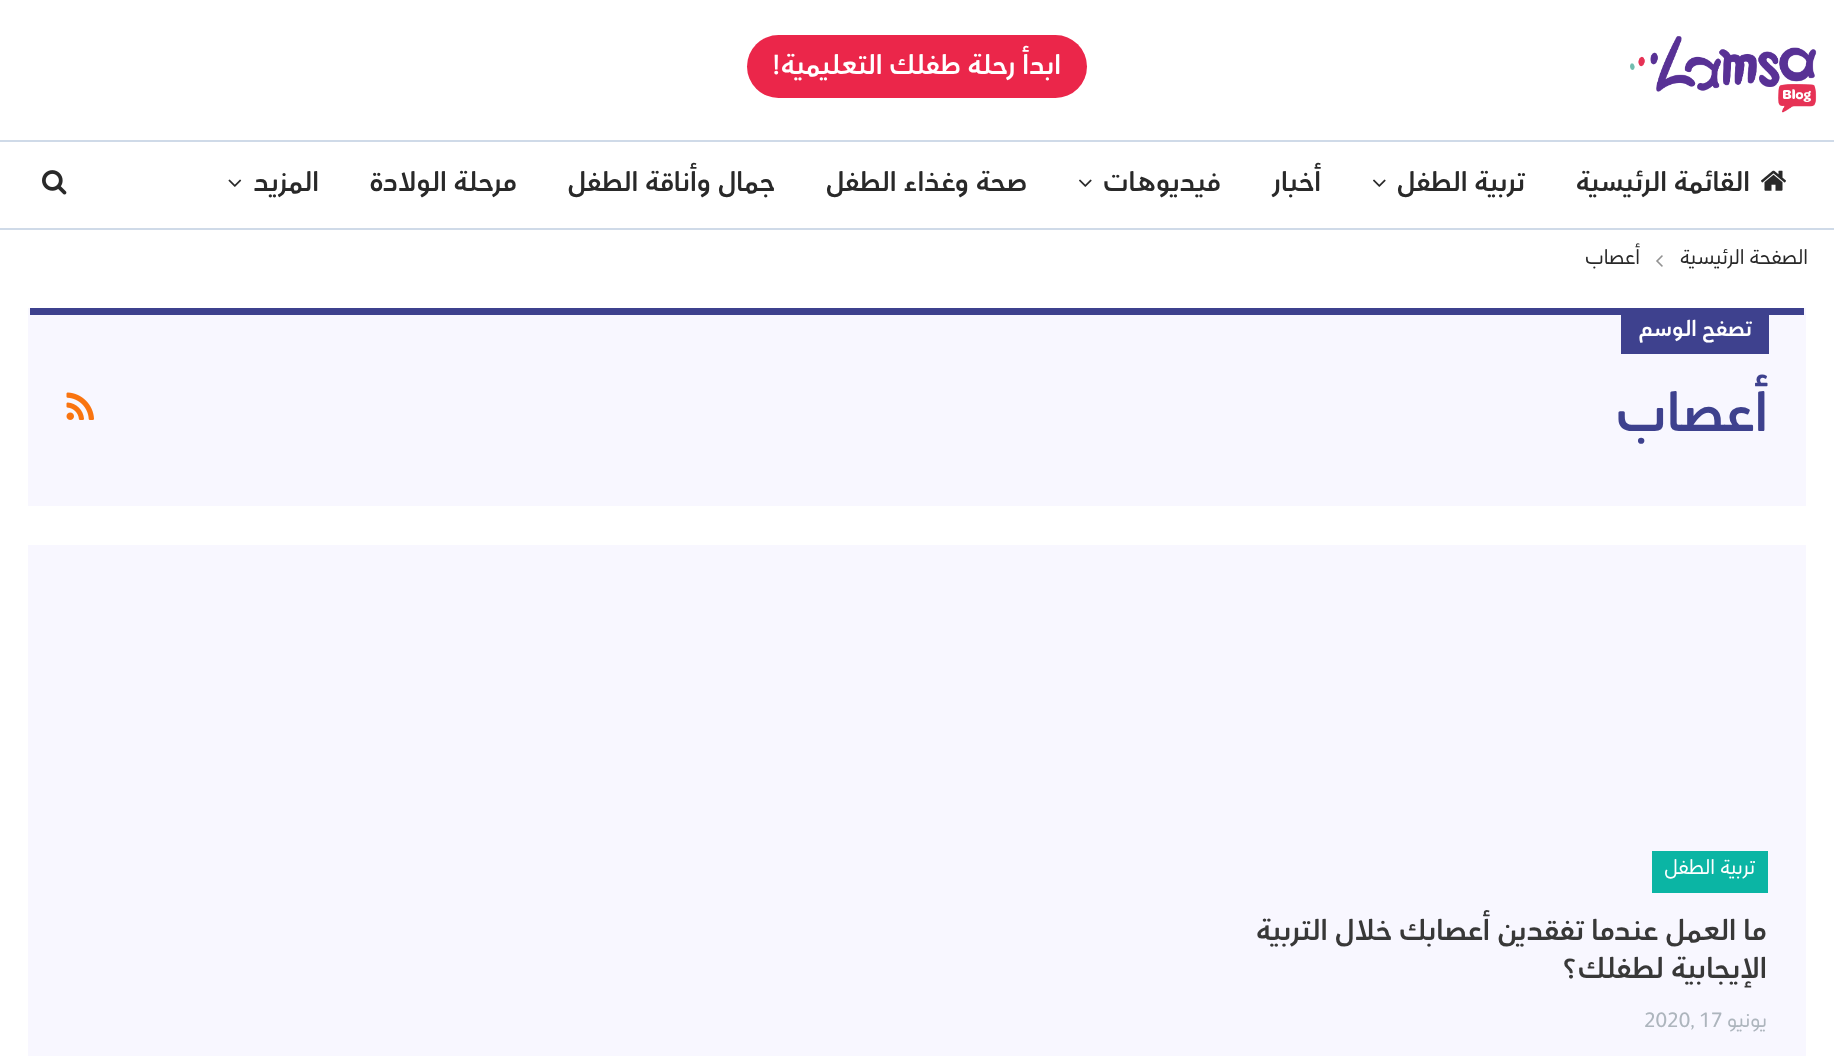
<svg xmlns="http://www.w3.org/2000/svg" width="1834" height="1056" viewBox="0 0 1834 1056">
  <style>
    .t1 { font: bold 28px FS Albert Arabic; direction: rtl; fill: #fff; }
    .t2 { font: bold 28px FS Albert Arabic; direction: rtl; fill: #292929; }
    .t3 { font: 21px FS Albert Arabic; direction: rtl; fill: #292929; }
    .t4 { font: bold 22.75px FS Albert Arabic; direction: rtl; fill: #fff; }
    .t5 { font: bold 56px FS Albert Arabic; direction: rtl; fill: #3e418e; }
    .t6 { font: 21px FS Albert Arabic; direction: rtl; fill: #fff; }
    .t7 { font: bold 29.75px FS Albert Arabic; direction: rtl; fill: #383838; }
    .t8 { font: 21px FS Albert Arabic; direction: rtl; fill: #adb5bd; }
    .t9 { font: 21px FS Albert Arabic; fill: #adb5bd; }
  </style>
  <rect width="100%" height="100%" fill="#fff"/>
  <image x="1630" y="36" width="187" height="77" href="images/1.png"/>
  <rect x="747" y="35" width="340" height="63" rx="31.5" fill="#eb264a"/>
  <text x="1061" y="74" class="t1">ابدأ رحلة طفلك التعليمية!</text>
  <rect x="0" y="140" width="1834" height="2" fill="#cfdae8"/>
  <rect x="0" y="228" width="1834" height="2" fill="#cfdae8"/>
  <image x="1761" y="170" width="25" height="21" href="images/2.png"/>
  <text x="1750" y="191" class="t2">القائمة الرئيسية</text>
  <text x="1525" y="191" class="t2">تربية الطفل</text>
  <image x="1373" y="179" width="13" height="8" href="images/3.png"/>
  <text x="1321" y="191" class="t2">أخبار</text>
  <text x="1221" y="191" class="t2">فيديوهات</text>
  <image x="1079" y="179" width="13" height="8" href="images/3.png"/>
  <text x="1027" y="191" class="t2">صحة وغذاء الطفل</text>
  <text x="775" y="191" class="t2">جمال وأناقة الطفل</text>
  <text x="517" y="191" class="t2">مرحلة الولادة</text>
  <text x="319" y="191" class="t2">المزيد</text>
  <image x="228" y="179" width="14" height="8" href="images/4.png"/>
  <image x="42" y="170" width="25" height="25" href="images/5.png"/>
  <text x="1808" y="264" class="t3">الصفحة الرئيسية</text>
  <image x="1656" y="255" width="7" height="12" href="images/6.png"/>
  <text x="1640" y="264" class="t3">أعصاب</text>
  <rect x="28" y="308" width="1778" height="198" fill="#f8f7ff"/>
  <rect x="30" y="308" width="1774" height="7" fill="#3e418e"/>
  <rect x="1621" y="315" width="148" height="39" fill="#3e418e"/>
  <text x="1752" y="336" class="t4">تصفح الوسم</text>
  <text x="1768" y="431" class="t5">أعصاب</text>
  <image x="66" y="392" width="28" height="28" href="images/7.png"/>
  <rect x="28" y="545" width="1778" height="511" fill="#f8f7ff"/>
  <rect x="1652" y="851" width="116" height="42" fill="#0bb5a4"/>
  <text x="1755" y="874" class="t6">تربية الطفل</text>
  <text x="1767" y="940" class="t7">ما العمل عندما تفقدين أعصابك خلال التربية</text>
  <text x="1767" y="978" class="t7">الإيجابية لطفلك؟</text>
  <text x="1767" y="1027" class="t8">يونيو</text>
  <text x="1644" y="1027" class="t9">2020, 17</text>
</svg>
